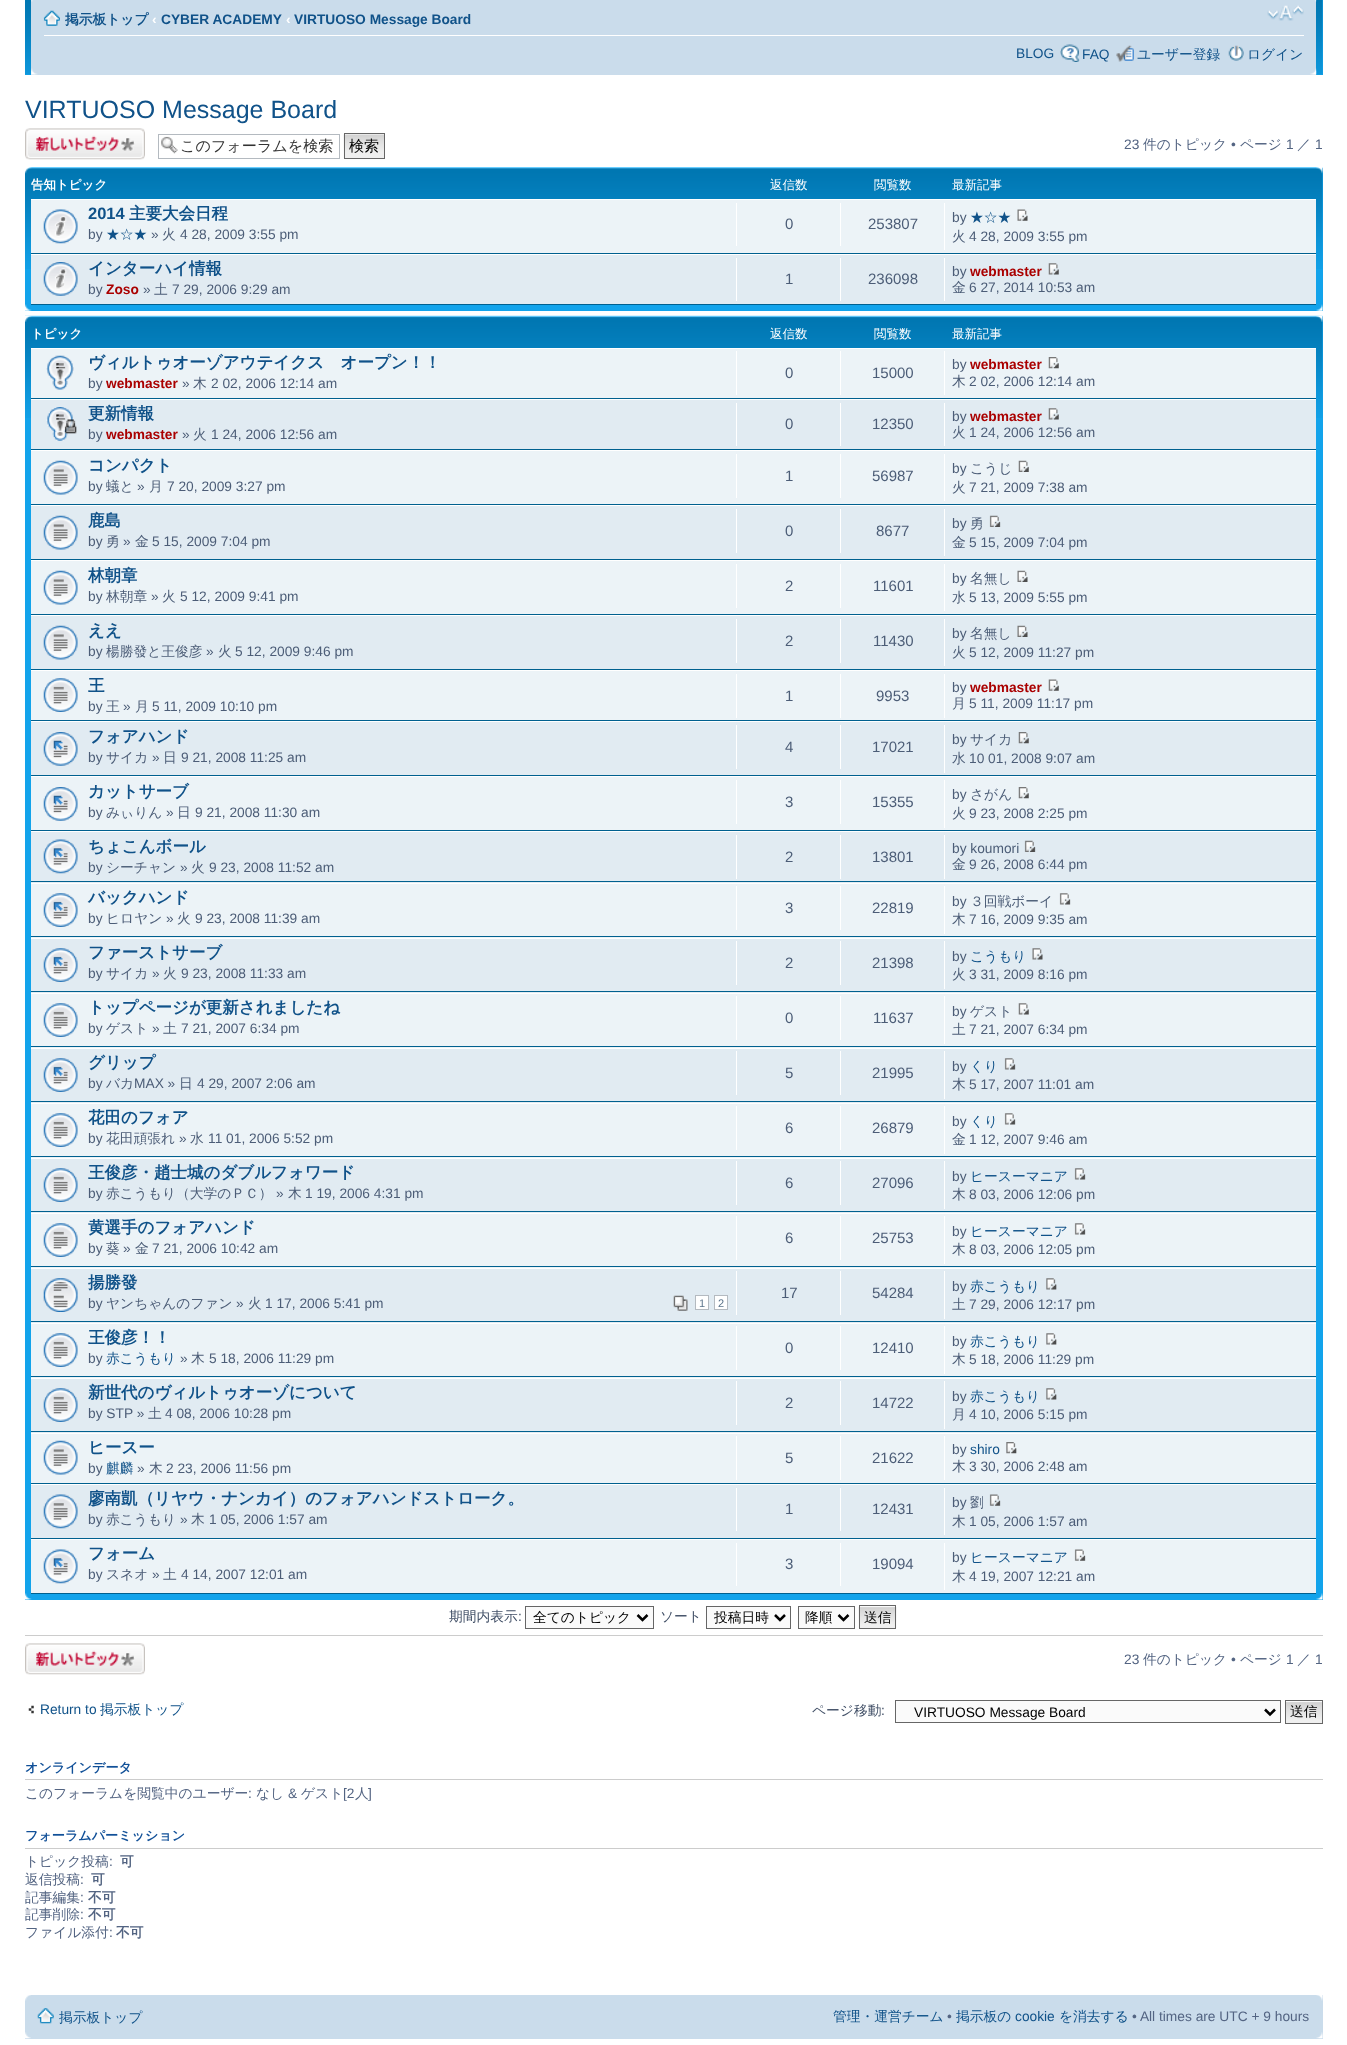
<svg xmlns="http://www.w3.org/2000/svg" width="1347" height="2045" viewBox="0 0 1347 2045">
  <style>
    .t1 { font: bold 13.75px WenQuanYi Zen Hei; fill: #105289; }
    .t2 { font: bold 13.75px Liberation Sans; fill: #fff; }
    .t3 { font: bold 13.75px Liberation Sans; fill: #105289; }
    .t4 { font: 13.75px Liberation Sans; fill: #105289; }
    .t5 { font: 500 13.75px WenQuanYi Zen Hei; fill: #105289; }
    .t6 { font: 25px Liberation Sans; fill: #105289; }
    .t7 { font: 500 15.1px WenQuanYi Zen Hei; fill: #333; }
    .t8 { font: 500 15.1px WenQuanYi Zen Hei; fill: #000; }
    .t9 { font: 13.75px Liberation Sans; fill: #536482; }
    .t10 { font: 500 13.75px WenQuanYi Zen Hei; fill: #536482; }
    .t11 { font: bold 12.5px WenQuanYi Zen Hei; fill: #fff; }
    .t12 { font: 500 12.5px WenQuanYi Zen Hei; fill: #fff; }
    .t13 { font: bold 16.5px Liberation Sans; fill: #105289; }
    .t14 { font: bold 16.5px WenQuanYi Zen Hei; fill: #105289; }
    .t15 { font: 13.75px Liberation Sans; fill: #4c5d77; }
    .t16 { font: 500 13.75px WenQuanYi Zen Hei; fill: #4c5d77; }
    .t17 { font: 15px Liberation Sans; fill: #4c5d77; }
    .t18 { font: bold 13.75px Liberation Sans; fill: #a00; }
    .t19 { font: 11px Liberation Sans; fill: #5c758c; }
    .t20 { font: 500 13.75px WenQuanYi Zen Hei; fill: #425067; }
    .t21 { font: 13.75px Liberation Sans; fill: #425067; }
    .t22 { font: 500 13.75px WenQuanYi Zen Hei; fill: #000; }
    .t23 { font: 13.75px Liberation Sans; fill: #000; }
    .t24 { font: bold 13.1px WenQuanYi Zen Hei; fill: #115098; }
    .t25 { font: bold 13.75px WenQuanYi Zen Hei; fill: #536482; }
  </style>
  <defs>
    <clipPath id="clip1"><rect x="714" y="1609" width="55" height="17"/></clipPath>
  </defs>
  <rect width="100%" height="100%" fill="#fff"/>
  <rect x="25" y="0" width="1298" height="75" fill="#12a3eb"/>
  <image x="25" y="0" width="1298" height="75" href="images/1.png"/>
  <rect x="31" y="0" width="1285" height="75" fill="#cadceb"/>
  <image x="31" y="0" width="2" height="2" href="images/2.png"/>
  <image x="1315" y="0" width="2" height="2" href="images/3.png"/>
  <rect x="44" y="35" width="1260" height="1" fill="#fff"/>
  <image x="43" y="10" width="17" height="16" href="images/4.png"/>
  <text x="65" y="24" class="t1">掲示板トップ</text>
  <text x="152" y="24" class="t2">‹</text>
  <text x="161" y="24" class="t3">CYBER ACADEMY</text>
  <text x="286" y="24" class="t2">‹</text>
  <text x="294" y="24" class="t3">VIRTUOSO Message Board</text>
  <image x="1267" y="5" width="37" height="16" href="images/5.png"/>
  <text x="1016" y="58" class="t4">BLOG</text>
  <image x="1060" y="44" width="20" height="18" href="images/6.png"/>
  <text x="1082" y="59" class="t4">FAQ</text>
  <image x="1116" y="45" width="18" height="17" href="images/7.png"/>
  <text x="1137" y="59" class="t5">ユーザー登録</text>
  <image x="1228" y="45" width="16" height="16" href="images/8.png"/>
  <text x="1247" y="59" class="t5">ログイン</text>
  <image x="31" y="68" width="7" height="7" href="images/9.png"/>
  <image x="1310" y="68" width="7" height="7" href="images/10.png"/>
  <text x="25" y="118" class="t6">VIRTUOSO Message Board</text>
  <image x="25" y="128" width="120" height="32" href="images/11.png"/>
  <image x="161" y="136" width="17" height="18" href="images/12.png"/>
  <rect x="158.5" y="134.5" width="181" height="24" fill="none" stroke="#b4bac0"/>
  <text x="180" y="151" class="t7">このフォーラムを検索</text>
  <image x="343" y="134" width="41" height="24" href="images/13.png"/>
  <rect x="344.5" y="133.5" width="40" height="25" fill="none" stroke="#666"/>
  <text x="349" y="151" class="t8">検索</text>
  <text x="1124" y="149" class="t9">23</text>
  <text x="1143" y="149" class="t10">件のトピック</text>
  <text x="1231" y="149" class="t9">•</text>
  <text x="1240" y="149" class="t10">ページ</text>
  <text x="1286" y="149" class="t9">1</text>
  <text x="1297" y="149" class="t10">／</text>
  <text x="1315" y="149" class="t9">1</text>
  <rect x="25" y="168" width="1298" height="143" fill="#12a3eb"/>
  <image x="25" y="167" width="1298" height="102" href="images/14.png"/>
  <image x="25" y="167" width="7" height="7" href="images/15.png"/>
  <image x="1316" y="167" width="7" height="7" href="images/16.png"/>
  <text x="31" y="189" class="t11">告知トピック</text>
  <text x="770" y="189" class="t12">返信数</text>
  <text x="874" y="189" class="t12">閲覧数</text>
  <text x="952" y="189" class="t12">最新記事</text>
  <rect x="31" y="200" width="1285" height="53" fill="#ecf3f7"/>
  <rect x="31" y="199" width="1285" height="1" fill="#fff"/>
  <rect x="31" y="253" width="1285" height="1" fill="#00608f"/>
  <image x="43" y="209" width="35" height="35" href="images/17.png"/>
  <text x="88" y="219" class="t13">2014</text>
  <text x="129" y="219" class="t14">主要大会日程</text>
  <text x="88" y="239" class="t15">by</text>
  <text x="106" y="239" class="t5">★☆★</text>
  <text x="151" y="239" class="t15">»</text>
  <text x="162" y="239" class="t16">火</text>
  <text x="180" y="239" class="t15">4 28, 2009 3:55 pm</text>
  <rect x="736" y="203" width="1" height="43" fill="#fff"/>
  <text x="785" y="229" class="t17">0</text>
  <rect x="840" y="203" width="1" height="43" fill="#fff"/>
  <text x="868" y="229" class="t17">253807</text>
  <rect x="944" y="203" width="1" height="47" fill="#fff"/>
  <text x="952" y="222" class="t15">by</text>
  <text x="970" y="222" class="t5">★☆★</text>
  <image x="1017" y="209" width="11" height="12" href="images/18.png"/>
  <text x="952" y="241" class="t16">火</text>
  <text x="969" y="241" class="t15">4 28, 2009 3:55 pm</text>
  <rect x="31" y="255" width="1285" height="49" fill="#e1ebf2"/>
  <rect x="31" y="254" width="1285" height="1" fill="#fff"/>
  <rect x="31" y="304" width="1285" height="1" fill="#00608f"/>
  <image x="43" y="262" width="35" height="34" href="images/19.png"/>
  <text x="88" y="274" class="t14">インターハイ情報</text>
  <text x="88" y="294" class="t15">by</text>
  <text x="106" y="294" class="t18">Zoso</text>
  <text x="143" y="294" class="t15">»</text>
  <text x="154" y="294" class="t16">土</text>
  <text x="172" y="294" class="t15">7 29, 2006 9:29 am</text>
  <rect x="736" y="258" width="1" height="43" fill="#fff"/>
  <text x="785" y="284" class="t17">1</text>
  <rect x="840" y="258" width="1" height="43" fill="#fff"/>
  <text x="868" y="284" class="t17">236098</text>
  <rect x="944" y="258" width="1" height="43" fill="#fff"/>
  <text x="952" y="276" class="t15">by</text>
  <text x="970" y="276" class="t18">webmaster</text>
  <image x="1048" y="263" width="11" height="12" href="images/20.png"/>
  <text x="952" y="292" class="t16">金</text>
  <text x="969" y="292" class="t15">6 27, 2014 10:53 am</text>
  <image x="25" y="304" width="7" height="7" href="images/21.png"/>
  <image x="1316" y="304" width="7" height="7" href="images/22.png"/>
  <rect x="25" y="316" width="1298" height="1284" fill="#12a3eb"/>
  <image x="25" y="315" width="1298" height="103" href="images/23.png"/>
  <image x="25" y="315" width="7" height="7" href="images/24.png"/>
  <image x="1316" y="315" width="7" height="7" href="images/25.png"/>
  <text x="31" y="338" class="t11">トピック</text>
  <text x="770" y="338" class="t12">返信数</text>
  <text x="874" y="338" class="t12">閲覧数</text>
  <text x="952" y="338" class="t12">最新記事</text>
  <rect x="31" y="349" width="1285" height="49" fill="#ecf3f7"/>
  <rect x="31" y="348" width="1285" height="1" fill="#fff"/>
  <rect x="31" y="398" width="1285" height="1" fill="#00608f"/>
  <image x="46" y="355" width="28" height="35" href="images/26.png"/>
  <text x="88" y="368" class="t14">ヴィルトゥオーゾアウテイクス　オープン！！</text>
  <text x="88" y="388" class="t15">by</text>
  <text x="106" y="388" class="t18">webmaster</text>
  <text x="182" y="388" class="t15">»</text>
  <text x="193" y="388" class="t16">木</text>
  <text x="211" y="388" class="t15">2 02, 2006 12:14 am</text>
  <rect x="736" y="351" width="1" height="44" fill="#fff"/>
  <text x="785" y="378" class="t17">0</text>
  <rect x="840" y="351" width="1" height="44" fill="#fff"/>
  <text x="872" y="378" class="t17">15000</text>
  <rect x="944" y="351" width="1" height="44" fill="#fff"/>
  <text x="952" y="369" class="t15">by</text>
  <text x="970" y="369" class="t18">webmaster</text>
  <image x="1048" y="357" width="11" height="12" href="images/27.png"/>
  <text x="952" y="386" class="t16">木</text>
  <text x="969" y="386" class="t15">2 02, 2006 12:14 am</text>
  <rect x="31" y="400" width="1285" height="49" fill="#e1ebf2"/>
  <rect x="31" y="399" width="1285" height="1" fill="#fff"/>
  <rect x="31" y="449" width="1285" height="1" fill="#00608f"/>
  <image x="46" y="407" width="31" height="34" href="images/28.png"/>
  <text x="88" y="419" class="t14">更新情報</text>
  <text x="88" y="439" class="t15">by</text>
  <text x="106" y="439" class="t18">webmaster</text>
  <text x="182" y="439" class="t15">»</text>
  <text x="193" y="439" class="t16">火</text>
  <text x="211" y="439" class="t15">1 24, 2006 12:56 am</text>
  <rect x="736" y="403" width="1" height="43" fill="#fff"/>
  <text x="785" y="429" class="t17">0</text>
  <rect x="840" y="403" width="1" height="43" fill="#fff"/>
  <text x="872" y="429" class="t17">12350</text>
  <rect x="944" y="403" width="1" height="43" fill="#fff"/>
  <text x="952" y="421" class="t15">by</text>
  <text x="970" y="421" class="t18">webmaster</text>
  <image x="1048" y="408" width="11" height="12" href="images/20.png"/>
  <text x="952" y="437" class="t16">火</text>
  <text x="969" y="437" class="t15">1 24, 2006 12:56 am</text>
  <rect x="31" y="451" width="1285" height="53" fill="#ecf3f7"/>
  <rect x="31" y="450" width="1285" height="1" fill="#fff"/>
  <rect x="31" y="504" width="1285" height="1" fill="#00608f"/>
  <image x="43" y="460" width="35" height="35" href="images/29.png"/>
  <text x="88" y="471" class="t14">コンパクト</text>
  <text x="88" y="491" class="t15">by</text>
  <text x="106" y="491" class="t16">蟻と</text>
  <text x="137" y="491" class="t15">»</text>
  <text x="149" y="491" class="t16">月</text>
  <text x="167" y="491" class="t15">7 20, 2009 3:27 pm</text>
  <rect x="736" y="454" width="1" height="44" fill="#fff"/>
  <text x="785" y="481" class="t17">1</text>
  <rect x="840" y="454" width="1" height="44" fill="#fff"/>
  <text x="872" y="481" class="t17">56987</text>
  <rect x="944" y="454" width="1" height="47" fill="#fff"/>
  <text x="952" y="473" class="t15">by</text>
  <text x="970" y="473" class="t16">こうじ</text>
  <image x="1018" y="460" width="11" height="12" href="images/30.png"/>
  <text x="952" y="492" class="t16">火</text>
  <text x="969" y="492" class="t15">7 21, 2009 7:38 am</text>
  <rect x="31" y="506" width="1285" height="53" fill="#e1ebf2"/>
  <rect x="31" y="505" width="1285" height="1" fill="#fff"/>
  <rect x="31" y="559" width="1285" height="1" fill="#00608f"/>
  <image x="43" y="515" width="35" height="35" href="images/31.png"/>
  <text x="88" y="526" class="t14">鹿島</text>
  <text x="88" y="546" class="t15">by</text>
  <text x="106" y="546" class="t16">勇</text>
  <text x="123" y="546" class="t15">»</text>
  <text x="135" y="546" class="t16">金</text>
  <text x="152" y="546" class="t15">5 15, 2009 7:04 pm</text>
  <rect x="736" y="509" width="1" height="44" fill="#fff"/>
  <text x="785" y="536" class="t17">0</text>
  <rect x="840" y="509" width="1" height="44" fill="#fff"/>
  <text x="876" y="536" class="t17">8677</text>
  <rect x="944" y="509" width="1" height="47" fill="#fff"/>
  <text x="952" y="528" class="t15">by</text>
  <text x="970" y="528" class="t16">勇</text>
  <image x="989" y="515" width="12" height="12" href="images/32.png"/>
  <text x="952" y="547" class="t16">金</text>
  <text x="969" y="547" class="t15">5 15, 2009 7:04 pm</text>
  <rect x="31" y="561" width="1285" height="53" fill="#ecf3f7"/>
  <rect x="31" y="560" width="1285" height="1" fill="#fff"/>
  <rect x="31" y="614" width="1285" height="1" fill="#00608f"/>
  <image x="43" y="570" width="35" height="35" href="images/29.png"/>
  <text x="88" y="581" class="t14">林朝章</text>
  <text x="88" y="601" class="t15">by</text>
  <text x="106" y="601" class="t16">林朝章</text>
  <text x="151" y="601" class="t15">»</text>
  <text x="162" y="601" class="t16">火</text>
  <text x="180" y="601" class="t15">5 12, 2009 9:41 pm</text>
  <rect x="736" y="564" width="1" height="44" fill="#fff"/>
  <text x="785" y="591" class="t17">2</text>
  <rect x="840" y="564" width="1" height="44" fill="#fff"/>
  <text x="873" y="591" class="t17">11601</text>
  <rect x="944" y="564" width="1" height="47" fill="#fff"/>
  <text x="952" y="583" class="t15">by</text>
  <text x="970" y="583" class="t16">名無し</text>
  <image x="1017" y="570" width="11" height="12" href="images/33.png"/>
  <text x="952" y="602" class="t16">水</text>
  <text x="969" y="602" class="t15">5 13, 2009 5:55 pm</text>
  <rect x="31" y="616" width="1285" height="53" fill="#e1ebf2"/>
  <rect x="31" y="615" width="1285" height="1" fill="#fff"/>
  <rect x="31" y="669" width="1285" height="1" fill="#00608f"/>
  <image x="43" y="625" width="35" height="35" href="images/31.png"/>
  <text x="88" y="636" class="t14">ええ</text>
  <text x="88" y="656" class="t15">by</text>
  <text x="106" y="656" class="t16">楊勝發と王俊彦</text>
  <text x="206" y="656" class="t15">»</text>
  <text x="218" y="656" class="t16">火</text>
  <text x="235" y="656" class="t15">5 12, 2009 9:46 pm</text>
  <rect x="736" y="619" width="1" height="44" fill="#fff"/>
  <text x="785" y="646" class="t17">2</text>
  <rect x="840" y="619" width="1" height="44" fill="#fff"/>
  <text x="873" y="646" class="t17">11430</text>
  <rect x="944" y="619" width="1" height="47" fill="#fff"/>
  <text x="952" y="638" class="t15">by</text>
  <text x="970" y="638" class="t16">名無し</text>
  <image x="1017" y="625" width="11" height="12" href="images/34.png"/>
  <text x="952" y="657" class="t16">火</text>
  <text x="969" y="657" class="t15">5 12, 2009 11:27 pm</text>
  <rect x="31" y="671" width="1285" height="49" fill="#ecf3f7"/>
  <rect x="31" y="670" width="1285" height="1" fill="#fff"/>
  <rect x="31" y="720" width="1285" height="1" fill="#00608f"/>
  <image x="43" y="678" width="35" height="34" href="images/35.png"/>
  <text x="88" y="691" class="t14">王</text>
  <text x="88" y="711" class="t15">by</text>
  <text x="106" y="711" class="t16">王</text>
  <text x="123" y="711" class="t15">»</text>
  <text x="135" y="711" class="t16">月</text>
  <text x="152" y="711" class="t15">5 11, 2009 10:10 pm</text>
  <rect x="736" y="674" width="1" height="44" fill="#fff"/>
  <text x="785" y="701" class="t17">1</text>
  <rect x="840" y="674" width="1" height="44" fill="#fff"/>
  <text x="876" y="701" class="t17">9953</text>
  <rect x="944" y="674" width="1" height="44" fill="#fff"/>
  <text x="952" y="692" class="t15">by</text>
  <text x="970" y="692" class="t18">webmaster</text>
  <image x="1048" y="679" width="11" height="12" href="images/36.png"/>
  <text x="952" y="708" class="t16">月</text>
  <text x="969" y="708" class="t15">5 11, 2009 11:17 pm</text>
  <rect x="31" y="722" width="1285" height="53" fill="#e1ebf2"/>
  <rect x="31" y="721" width="1285" height="1" fill="#fff"/>
  <rect x="31" y="775" width="1285" height="1" fill="#00608f"/>
  <image x="43" y="732" width="35" height="34" href="images/37.png"/>
  <text x="88" y="742" class="t14">フォアハンド</text>
  <text x="88" y="762" class="t15">by</text>
  <text x="106" y="762" class="t16">サイカ</text>
  <text x="152" y="762" class="t15">»</text>
  <text x="163" y="762" class="t16">日</text>
  <text x="181" y="762" class="t15">9 21, 2008 11:25 am</text>
  <rect x="736" y="725" width="1" height="44" fill="#fff"/>
  <text x="785" y="752" class="t17">4</text>
  <rect x="840" y="725" width="1" height="44" fill="#fff"/>
  <text x="872" y="752" class="t17">17021</text>
  <rect x="944" y="725" width="1" height="48" fill="#fff"/>
  <text x="952" y="744" class="t15">by</text>
  <text x="970" y="744" class="t16">サイカ</text>
  <image x="1018" y="732" width="11" height="12" href="images/38.png"/>
  <text x="952" y="763" class="t16">水</text>
  <text x="969" y="763" class="t15">10 01, 2008 9:07 am</text>
  <rect x="31" y="777" width="1285" height="53" fill="#ecf3f7"/>
  <rect x="31" y="776" width="1285" height="1" fill="#fff"/>
  <rect x="31" y="830" width="1285" height="1" fill="#00608f"/>
  <image x="43" y="787" width="35" height="34" href="images/39.png"/>
  <text x="88" y="797" class="t14">カットサーブ</text>
  <text x="88" y="817" class="t15">by</text>
  <text x="106" y="817" class="t16">みぃりん</text>
  <text x="166" y="817" class="t15">»</text>
  <text x="177" y="817" class="t16">日</text>
  <text x="195" y="817" class="t15">9 21, 2008 11:30 am</text>
  <rect x="736" y="780" width="1" height="44" fill="#fff"/>
  <text x="785" y="807" class="t17">3</text>
  <rect x="840" y="780" width="1" height="44" fill="#fff"/>
  <text x="872" y="807" class="t17">15355</text>
  <rect x="944" y="780" width="1" height="48" fill="#fff"/>
  <text x="952" y="799" class="t15">by</text>
  <text x="970" y="799" class="t16">さがん</text>
  <image x="1018" y="787" width="11" height="12" href="images/27.png"/>
  <text x="952" y="818" class="t16">火</text>
  <text x="969" y="818" class="t15">9 23, 2008 2:25 pm</text>
  <rect x="31" y="832" width="1285" height="51" fill="#e1ebf2"/>
  <rect x="31" y="831" width="1285" height="1" fill="#fff"/>
  <rect x="31" y="881" width="1285" height="1" fill="#00608f"/>
  <image x="43" y="839" width="35" height="35" href="images/40.png"/>
  <text x="88" y="852" class="t14">ちょこんボール</text>
  <text x="88" y="872" class="t15">by</text>
  <text x="106" y="872" class="t16">シーチャン</text>
  <text x="180" y="872" class="t15">»</text>
  <text x="191" y="872" class="t16">火</text>
  <text x="209" y="872" class="t15">9 23, 2008 11:52 am</text>
  <rect x="736" y="835" width="1" height="44" fill="#fff"/>
  <text x="785" y="862" class="t17">2</text>
  <rect x="840" y="835" width="1" height="44" fill="#fff"/>
  <text x="872" y="862" class="t17">13801</text>
  <rect x="944" y="835" width="1" height="44" fill="#fff"/>
  <text x="952" y="853" class="t15">by koumori</text>
  <image x="1024" y="840" width="12" height="12" href="images/32.png"/>
  <text x="952" y="869" class="t16">金</text>
  <text x="969" y="869" class="t15">9 26, 2008 6:44 pm</text>
  <rect x="31" y="884" width="1285" height="54" fill="#ecf3f7"/>
  <rect x="31" y="883" width="1285" height="1" fill="#fff"/>
  <rect x="31" y="936" width="1285" height="1" fill="#00608f"/>
  <image x="43" y="893" width="35" height="34" href="images/41.png"/>
  <text x="88" y="903" class="t14">バックハンド</text>
  <text x="88" y="923" class="t15">by</text>
  <text x="106" y="923" class="t16">ヒロヤン</text>
  <text x="166" y="923" class="t15">»</text>
  <text x="177" y="923" class="t16">火</text>
  <text x="195" y="923" class="t15">9 23, 2008 11:39 am</text>
  <rect x="736" y="886" width="1" height="44" fill="#fff"/>
  <text x="785" y="913" class="t17">3</text>
  <rect x="840" y="886" width="1" height="44" fill="#fff"/>
  <text x="872" y="913" class="t17">22819</text>
  <rect x="944" y="886" width="1" height="48" fill="#fff"/>
  <text x="952" y="906" class="t15">by</text>
  <text x="970" y="906" class="t16">３回戦ボーイ</text>
  <image x="1059" y="893" width="12" height="12" href="images/42.png"/>
  <text x="952" y="924" class="t16">木</text>
  <text x="969" y="924" class="t15">7 16, 2009 9:35 am</text>
  <rect x="31" y="939" width="1285" height="54" fill="#e1ebf2"/>
  <rect x="31" y="938" width="1285" height="1" fill="#fff"/>
  <rect x="31" y="991" width="1285" height="1" fill="#00608f"/>
  <image x="43" y="948" width="35" height="34" href="images/43.png"/>
  <text x="88" y="958" class="t14">ファーストサーブ</text>
  <text x="88" y="978" class="t15">by</text>
  <text x="106" y="978" class="t16">サイカ</text>
  <text x="152" y="978" class="t15">»</text>
  <text x="163" y="978" class="t16">火</text>
  <text x="181" y="978" class="t15">9 23, 2008 11:33 am</text>
  <rect x="736" y="941" width="1" height="44" fill="#fff"/>
  <text x="785" y="968" class="t17">2</text>
  <rect x="840" y="941" width="1" height="44" fill="#fff"/>
  <text x="872" y="968" class="t17">21398</text>
  <rect x="944" y="941" width="1" height="48" fill="#fff"/>
  <text x="952" y="961" class="t15">by</text>
  <text x="970" y="961" class="t5">こうもり</text>
  <image x="1032" y="948" width="11" height="12" href="images/44.png"/>
  <text x="952" y="979" class="t16">火</text>
  <text x="969" y="979" class="t15">3 31, 2009 8:16 pm</text>
  <rect x="31" y="994" width="1285" height="54" fill="#ecf3f7"/>
  <rect x="31" y="993" width="1285" height="1" fill="#fff"/>
  <rect x="31" y="1046" width="1285" height="1" fill="#00608f"/>
  <image x="43" y="1003" width="35" height="34" href="images/45.png"/>
  <text x="88" y="1013" class="t14">トップページが更新されましたね</text>
  <text x="88" y="1033" class="t15">by</text>
  <text x="106" y="1033" class="t16">ゲスト</text>
  <text x="152" y="1033" class="t15">»</text>
  <text x="163" y="1033" class="t16">土</text>
  <text x="181" y="1033" class="t15">7 21, 2007 6:34 pm</text>
  <rect x="736" y="996" width="1" height="44" fill="#fff"/>
  <text x="785" y="1023" class="t17">0</text>
  <rect x="840" y="996" width="1" height="44" fill="#fff"/>
  <text x="873" y="1023" class="t17">11637</text>
  <rect x="944" y="996" width="1" height="48" fill="#fff"/>
  <text x="952" y="1016" class="t15">by</text>
  <text x="970" y="1016" class="t16">ゲスト</text>
  <image x="1018" y="1003" width="11" height="12" href="images/46.png"/>
  <text x="952" y="1034" class="t16">土</text>
  <text x="969" y="1034" class="t15">7 21, 2007 6:34 pm</text>
  <rect x="31" y="1049" width="1285" height="54" fill="#e1ebf2"/>
  <rect x="31" y="1048" width="1285" height="1" fill="#fff"/>
  <rect x="31" y="1101" width="1285" height="1" fill="#00608f"/>
  <image x="43" y="1058" width="35" height="34" href="images/43.png"/>
  <text x="88" y="1068" class="t14">グリップ</text>
  <text x="88" y="1088" class="t15">by</text>
  <text x="106" y="1088" class="t16">バカ</text>
  <text x="134" y="1088" class="t15">MAX »</text>
  <text x="179" y="1088" class="t16">日</text>
  <text x="197" y="1088" class="t15">4 29, 2007 2:06 am</text>
  <rect x="736" y="1051" width="1" height="44" fill="#fff"/>
  <text x="785" y="1078" class="t17">5</text>
  <rect x="840" y="1051" width="1" height="44" fill="#fff"/>
  <text x="872" y="1078" class="t17">21995</text>
  <rect x="944" y="1051" width="1" height="48" fill="#fff"/>
  <text x="952" y="1071" class="t15">by</text>
  <text x="970" y="1071" class="t5">くり</text>
  <image x="1004" y="1058" width="12" height="12" href="images/47.png"/>
  <text x="952" y="1089" class="t16">木</text>
  <text x="969" y="1089" class="t15">5 17, 2007 11:01 am</text>
  <rect x="31" y="1104" width="1285" height="54" fill="#ecf3f7"/>
  <rect x="31" y="1103" width="1285" height="1" fill="#fff"/>
  <rect x="31" y="1156" width="1285" height="1" fill="#00608f"/>
  <image x="43" y="1113" width="35" height="34" href="images/45.png"/>
  <text x="88" y="1123" class="t14">花田のフォア</text>
  <text x="88" y="1143" class="t15">by</text>
  <text x="106" y="1143" class="t16">花田頑張れ</text>
  <text x="179" y="1143" class="t15">»</text>
  <text x="190" y="1143" class="t16">水</text>
  <text x="208" y="1143" class="t15">11 01, 2006 5:52 pm</text>
  <rect x="736" y="1106" width="1" height="44" fill="#fff"/>
  <text x="785" y="1133" class="t17">6</text>
  <rect x="840" y="1106" width="1" height="44" fill="#fff"/>
  <text x="872" y="1133" class="t17">26879</text>
  <rect x="944" y="1106" width="1" height="48" fill="#fff"/>
  <text x="952" y="1126" class="t15">by</text>
  <text x="970" y="1126" class="t5">くり</text>
  <image x="1004" y="1113" width="12" height="12" href="images/42.png"/>
  <text x="952" y="1144" class="t16">金</text>
  <text x="969" y="1144" class="t15">1 12, 2007 9:46 am</text>
  <rect x="31" y="1159" width="1285" height="54" fill="#e1ebf2"/>
  <rect x="31" y="1158" width="1285" height="1" fill="#fff"/>
  <rect x="31" y="1211" width="1285" height="1" fill="#00608f"/>
  <image x="43" y="1168" width="35" height="34" href="images/48.png"/>
  <text x="88" y="1178" class="t14">王俊彦・趙士城のダブルフォワード</text>
  <text x="88" y="1198" class="t15">by</text>
  <text x="106" y="1198" class="t16">赤こうもり（大学のＰＣ）</text>
  <text x="276" y="1198" class="t15">»</text>
  <text x="288" y="1198" class="t16">木</text>
  <text x="305" y="1198" class="t15">1 19, 2006 4:31 pm</text>
  <rect x="736" y="1161" width="1" height="44" fill="#fff"/>
  <text x="785" y="1188" class="t17">6</text>
  <rect x="840" y="1161" width="1" height="44" fill="#fff"/>
  <text x="872" y="1188" class="t17">27096</text>
  <rect x="944" y="1161" width="1" height="48" fill="#fff"/>
  <text x="952" y="1181" class="t15">by</text>
  <text x="970" y="1181" class="t5">ヒースーマニア</text>
  <image x="1074" y="1168" width="12" height="12" href="images/47.png"/>
  <text x="952" y="1199" class="t16">木</text>
  <text x="969" y="1199" class="t15">8 03, 2006 12:06 pm</text>
  <rect x="31" y="1214" width="1285" height="54" fill="#ecf3f7"/>
  <rect x="31" y="1213" width="1285" height="1" fill="#fff"/>
  <rect x="31" y="1266" width="1285" height="1" fill="#00608f"/>
  <image x="43" y="1223" width="35" height="34" href="images/45.png"/>
  <text x="88" y="1233" class="t14">黄選手のフォアハンド</text>
  <text x="88" y="1253" class="t15">by</text>
  <text x="106" y="1253" class="t16">葵</text>
  <text x="123" y="1253" class="t15">»</text>
  <text x="135" y="1253" class="t16">金</text>
  <text x="152" y="1253" class="t15">7 21, 2006 10:42 am</text>
  <rect x="736" y="1216" width="1" height="44" fill="#fff"/>
  <text x="785" y="1243" class="t17">6</text>
  <rect x="840" y="1216" width="1" height="44" fill="#fff"/>
  <text x="872" y="1243" class="t17">25753</text>
  <rect x="944" y="1216" width="1" height="48" fill="#fff"/>
  <text x="952" y="1236" class="t15">by</text>
  <text x="970" y="1236" class="t5">ヒースーマニア</text>
  <image x="1074" y="1223" width="12" height="12" href="images/42.png"/>
  <text x="952" y="1254" class="t16">木</text>
  <text x="969" y="1254" class="t15">8 03, 2006 12:05 pm</text>
  <rect x="31" y="1269" width="1285" height="54" fill="#e1ebf2"/>
  <rect x="31" y="1268" width="1285" height="1" fill="#fff"/>
  <rect x="31" y="1321" width="1285" height="1" fill="#00608f"/>
  <image x="43" y="1278" width="35" height="34" href="images/49.png"/>
  <text x="88" y="1288" class="t14">揚勝發</text>
  <text x="88" y="1308" class="t15">by</text>
  <text x="106" y="1308" class="t16">ヤンちゃんのファン</text>
  <text x="236" y="1308" class="t15">»</text>
  <text x="248" y="1308" class="t16">火</text>
  <text x="265" y="1308" class="t15">1 17, 2006 5:41 pm</text>
  <image x="673" y="1295" width="15" height="16" href="images/50.png"/>
  <rect x="695.5" y="1295.5" width="13" height="14" fill="#fff" stroke="#b4bac0"/>
  <text x="699" y="1307" class="t19">1</text>
  <rect x="714.5" y="1295.5" width="13" height="14" fill="#fff" stroke="#b4bac0"/>
  <text x="718" y="1307" class="t19">2</text>
  <rect x="736" y="1271" width="1" height="44" fill="#fff"/>
  <text x="781" y="1298" class="t17">17</text>
  <rect x="840" y="1271" width="1" height="44" fill="#fff"/>
  <text x="872" y="1298" class="t17">54284</text>
  <rect x="944" y="1271" width="1" height="48" fill="#fff"/>
  <text x="952" y="1291" class="t15">by</text>
  <text x="970" y="1291" class="t5">赤こうもり</text>
  <image x="1046" y="1278" width="11" height="12" href="images/51.png"/>
  <text x="952" y="1309" class="t16">土</text>
  <text x="969" y="1309" class="t15">7 29, 2006 12:17 pm</text>
  <rect x="31" y="1324" width="1285" height="54" fill="#ecf3f7"/>
  <rect x="31" y="1323" width="1285" height="1" fill="#fff"/>
  <rect x="31" y="1376" width="1285" height="1" fill="#00608f"/>
  <image x="43" y="1333" width="35" height="34" href="images/45.png"/>
  <text x="88" y="1343" class="t14">王俊彦！！</text>
  <text x="88" y="1363" class="t15">by</text>
  <text x="106" y="1363" class="t5">赤こうもり</text>
  <text x="180" y="1363" class="t15">»</text>
  <text x="191" y="1363" class="t16">木</text>
  <text x="209" y="1363" class="t15">5 18, 2006 11:29 pm</text>
  <rect x="736" y="1326" width="1" height="44" fill="#fff"/>
  <text x="785" y="1353" class="t17">0</text>
  <rect x="840" y="1326" width="1" height="44" fill="#fff"/>
  <text x="872" y="1353" class="t17">12410</text>
  <rect x="944" y="1326" width="1" height="48" fill="#fff"/>
  <text x="952" y="1346" class="t15">by</text>
  <text x="970" y="1346" class="t5">赤こうもり</text>
  <image x="1046" y="1333" width="11" height="12" href="images/52.png"/>
  <text x="952" y="1364" class="t16">木</text>
  <text x="969" y="1364" class="t15">5 18, 2006 11:29 pm</text>
  <rect x="31" y="1379" width="1285" height="54" fill="#e1ebf2"/>
  <rect x="31" y="1378" width="1285" height="1" fill="#fff"/>
  <rect x="31" y="1431" width="1285" height="1" fill="#00608f"/>
  <image x="43" y="1388" width="35" height="34" href="images/48.png"/>
  <text x="88" y="1398" class="t14">新世代のヴィルトゥオーゾについて</text>
  <text x="88" y="1418" class="t15">by STP »</text>
  <text x="148" y="1418" class="t16">土</text>
  <text x="165" y="1418" class="t15">4 08, 2006 10:28 pm</text>
  <rect x="736" y="1381" width="1" height="44" fill="#fff"/>
  <text x="785" y="1408" class="t17">2</text>
  <rect x="840" y="1381" width="1" height="44" fill="#fff"/>
  <text x="872" y="1408" class="t17">14722</text>
  <rect x="944" y="1381" width="1" height="48" fill="#fff"/>
  <text x="952" y="1401" class="t15">by</text>
  <text x="970" y="1401" class="t5">赤こうもり</text>
  <image x="1046" y="1388" width="11" height="12" href="images/51.png"/>
  <text x="952" y="1419" class="t16">月</text>
  <text x="969" y="1419" class="t15">4 10, 2006 5:15 pm</text>
  <rect x="31" y="1434" width="1285" height="49" fill="#ecf3f7"/>
  <rect x="31" y="1433" width="1285" height="1" fill="#fff"/>
  <rect x="31" y="1483" width="1285" height="1" fill="#00608f"/>
  <image x="43" y="1440" width="35" height="35" href="images/29.png"/>
  <text x="88" y="1453" class="t14">ヒースー</text>
  <text x="88" y="1473" class="t15">by</text>
  <text x="106" y="1473" class="t5">麒麟</text>
  <text x="137" y="1473" class="t15">»</text>
  <text x="149" y="1473" class="t16">木</text>
  <text x="166" y="1473" class="t15">2 23, 2006 11:56 pm</text>
  <rect x="736" y="1436" width="1" height="44" fill="#fff"/>
  <text x="785" y="1463" class="t17">5</text>
  <rect x="840" y="1436" width="1" height="44" fill="#fff"/>
  <text x="872" y="1463" class="t17">21622</text>
  <rect x="944" y="1436" width="1" height="44" fill="#fff"/>
  <text x="952" y="1454" class="t15">by</text>
  <text x="970" y="1454" class="t4">shiro</text>
  <image x="1006" y="1442" width="11" height="12" href="images/53.png"/>
  <text x="952" y="1471" class="t16">木</text>
  <text x="969" y="1471" class="t15">3 30, 2006 2:48 am</text>
  <rect x="31" y="1485" width="1285" height="53" fill="#e1ebf2"/>
  <rect x="31" y="1484" width="1285" height="1" fill="#fff"/>
  <rect x="31" y="1538" width="1285" height="1" fill="#00608f"/>
  <image x="43" y="1494" width="35" height="35" href="images/54.png"/>
  <text x="88" y="1504" class="t14">廖南凱（リヤウ・ナンカイ）のフォアハンドストローク。</text>
  <text x="88" y="1524" class="t15">by</text>
  <text x="106" y="1524" class="t16">赤こうもり</text>
  <text x="180" y="1524" class="t15">»</text>
  <text x="191" y="1524" class="t16">木</text>
  <text x="209" y="1524" class="t15">1 05, 2006 1:57 am</text>
  <rect x="736" y="1488" width="1" height="43" fill="#fff"/>
  <text x="785" y="1514" class="t17">1</text>
  <rect x="840" y="1488" width="1" height="43" fill="#fff"/>
  <text x="872" y="1514" class="t17">12431</text>
  <rect x="944" y="1488" width="1" height="47" fill="#fff"/>
  <text x="952" y="1507" class="t15">by</text>
  <text x="970" y="1507" class="t16">劉</text>
  <image x="989" y="1494" width="12" height="12" href="images/55.png"/>
  <text x="952" y="1526" class="t16">木</text>
  <text x="969" y="1526" class="t15">1 05, 2006 1:57 am</text>
  <rect x="31" y="1540" width="1285" height="53" fill="#ecf3f7"/>
  <rect x="31" y="1539" width="1285" height="1" fill="#fff"/>
  <rect x="31" y="1593" width="1285" height="1" fill="#00608f"/>
  <image x="43" y="1549" width="35" height="35" href="images/56.png"/>
  <text x="88" y="1559" class="t14">フォーム</text>
  <text x="88" y="1579" class="t15">by</text>
  <text x="106" y="1579" class="t16">スネオ</text>
  <text x="152" y="1579" class="t15">»</text>
  <text x="163" y="1579" class="t16">土</text>
  <text x="181" y="1579" class="t15">4 14, 2007 12:01 am</text>
  <rect x="736" y="1543" width="1" height="43" fill="#fff"/>
  <text x="785" y="1569" class="t17">3</text>
  <rect x="840" y="1543" width="1" height="43" fill="#fff"/>
  <text x="872" y="1569" class="t17">19094</text>
  <rect x="944" y="1543" width="1" height="47" fill="#fff"/>
  <text x="952" y="1562" class="t15">by</text>
  <text x="970" y="1562" class="t5">ヒースーマニア</text>
  <image x="1074" y="1549" width="12" height="12" href="images/57.png"/>
  <text x="952" y="1581" class="t16">木</text>
  <text x="969" y="1581" class="t15">4 19, 2007 12:21 am</text>
  <image x="25" y="1593" width="7" height="7" href="images/58.png"/>
  <image x="1316" y="1593" width="7" height="7" href="images/59.png"/>
  <text x="449" y="1621" class="t20">期間内表示</text>
  <text x="518" y="1621" class="t21">:</text>
  <rect x="525.5" y="1606.5" width="128" height="22" fill="#fafafa" stroke="#666"/>
  <path d="M637.5 1615L642.5 1620L647.5 1615" fill="none" stroke="#000" stroke-width="2.5"/>
  <text x="533" y="1622" class="t22">全てのトピック</text>
  <text x="660" y="1621" class="t20">ソート</text>
  <rect x="706.5" y="1606.5" width="84" height="22" fill="#fafafa" stroke="#666"/>
  <path d="M775 1615L780 1620L785 1615" fill="none" stroke="#000" stroke-width="2.5"/>
  <g clip-path="url(#clip1)">
    <text x="714" y="1622" class="t22">投稿日時</text>
  </g>
  <rect x="798.5" y="1606.5" width="56" height="22" fill="#fafafa" stroke="#666"/>
  <path d="M838.5 1615L843.5 1620L848.5 1615" fill="none" stroke="#000" stroke-width="2.5"/>
  <text x="805" y="1622" class="t22">降順</text>
  <rect x="860" y="1606" width="35" height="1" fill="#fafafa"/>
  <image x="858" y="1607" width="39" height="21" href="images/60.png"/>
  <rect x="859.5" y="1605.5" width="36" height="23" fill="none" stroke="#666"/>
  <text x="864" y="1622" class="t22">送信</text>
  <rect x="25" y="1635" width="1298" height="1" fill="#ccc"/>
  <image x="25" y="1643" width="120" height="32" href="images/11.png"/>
  <text x="1124" y="1664" class="t9">23</text>
  <text x="1143" y="1664" class="t10">件のトピック</text>
  <text x="1231" y="1664" class="t9">•</text>
  <text x="1240" y="1664" class="t10">ページ</text>
  <text x="1286" y="1664" class="t9">1</text>
  <text x="1297" y="1664" class="t10">／</text>
  <text x="1315" y="1664" class="t9">1</text>
  <image x="28" y="1705" width="6" height="9" href="images/61.png"/>
  <text x="40" y="1714" class="t4">Return to</text>
  <text x="100" y="1714" class="t5">掲示板トップ</text>
  <text x="812" y="1715" class="t20">ページ移動</text>
  <text x="881" y="1715" class="t21">:</text>
  <rect x="895.5" y="1700.5" width="385" height="22" fill="#fafafa" stroke="#666"/>
  <path d="M1265 1709.5L1270 1714.5L1275 1709.5" fill="none" stroke="#000" stroke-width="2.5"/>
  <text x="914" y="1717" class="t23">VIRTUOSO Message Board</text>
  <rect x="1286" y="1701" width="36" height="1" fill="#fafafa"/>
  <image x="1286" y="1702" width="36" height="21" href="images/62.png"/>
  <rect x="1285.5" y="1700.5" width="37" height="23" fill="none" stroke="#666"/>
  <text x="1290" y="1716" class="t22">送信</text>
  <rect x="25" y="1779" width="1298" height="1" fill="#ccc"/>
  <text x="25" y="1772" class="t24">オンラインデータ</text>
  <text x="25" y="1798" class="t10">このフォーラムを閲覧中のユーザー</text>
  <text x="248" y="1798" class="t9">:</text>
  <text x="256" y="1798" class="t10">なし</text>
  <text x="288" y="1798" class="t9">&amp;</text>
  <text x="301" y="1798" class="t10">ゲスト</text>
  <text x="343" y="1798" class="t9">[2</text>
  <text x="355" y="1798" class="t10">人</text>
  <text x="368" y="1798" class="t9">]</text>
  <rect x="25" y="1848" width="1298" height="1" fill="#ccc"/>
  <text x="25" y="1840" class="t24">フォーラムパーミッション</text>
  <text x="25" y="1866" class="t10">トピック投稿</text>
  <text x="109" y="1866" class="t9">:</text>
  <text x="120" y="1866" class="t25">可</text>
  <text x="25" y="1884" class="t10">返信投稿</text>
  <text x="80" y="1884" class="t9">:</text>
  <text x="91" y="1884" class="t25">可</text>
  <text x="25" y="1902" class="t10">記事編集</text>
  <text x="80" y="1902" class="t9">:</text>
  <text x="88" y="1902" class="t25">不可</text>
  <text x="25" y="1919" class="t10">記事削除</text>
  <text x="80" y="1919" class="t9">:</text>
  <text x="88" y="1919" class="t25">不可</text>
  <text x="25" y="1937" class="t10">ファイル添付</text>
  <text x="109" y="1937" class="t9">:</text>
  <text x="116" y="1937" class="t25">不可</text>
  <rect x="25" y="1995" width="1298" height="44" fill="#cadceb"/>
  <image x="25" y="1995" width="6" height="6" href="images/63.png"/>
  <image x="1316" y="1995" width="7" height="6" href="images/64.png"/>
  <image x="37" y="2008" width="17" height="16" href="images/65.png"/>
  <text x="59" y="2022" class="t5">掲示板トップ</text>
  <text x="833" y="2021" class="t5">管理・運営チーム</text>
  <text x="947" y="2021" class="t9">•</text>
  <text x="956" y="2021" class="t5">掲示板の</text>
  <text x="1015" y="2021" class="t4">cookie</text>
  <text x="1059" y="2021" class="t5">を消去する</text>
  <text x="1132" y="2021" class="t9">• All times are UTC + 9 hours</text>
  <image x="25" y="2032" width="6" height="7" href="images/66.png"/>
  <image x="1316" y="2032" width="7" height="7" href="images/67.png"/>
</svg>
